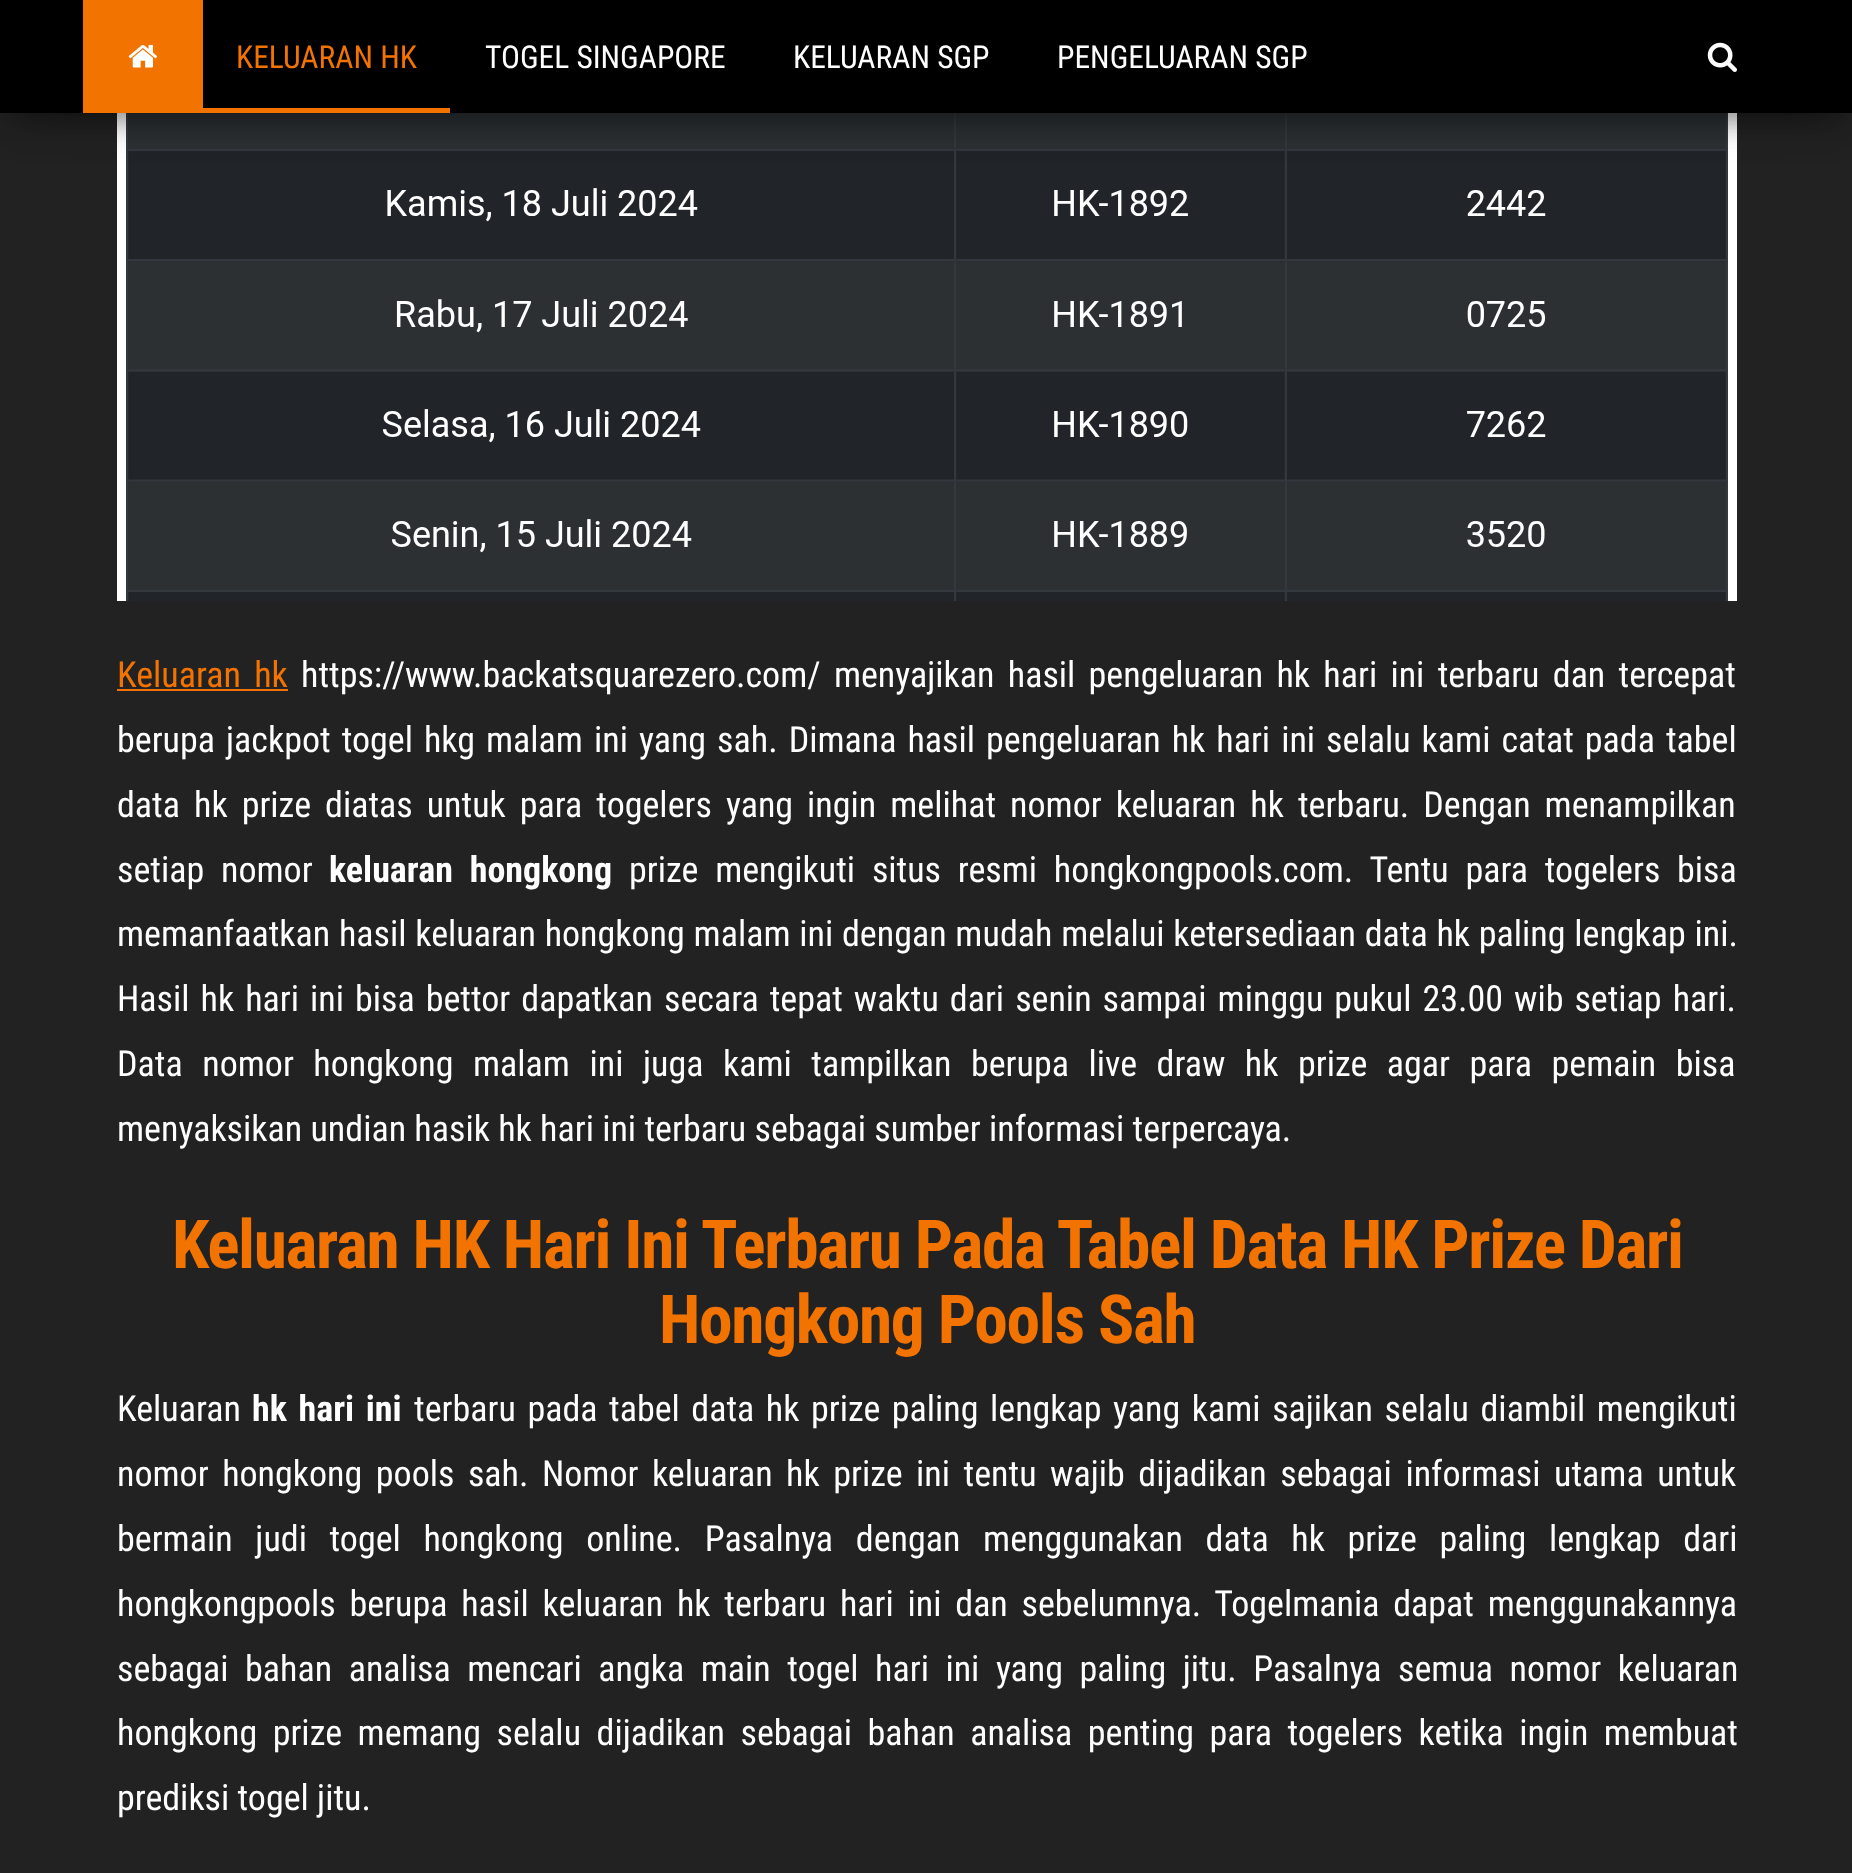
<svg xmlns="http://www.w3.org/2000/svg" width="1852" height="1873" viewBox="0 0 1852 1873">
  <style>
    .t1 { font: 31.5px Roboto Condensed; fill: #f27300; }
    .t2 { font: 31.5px Roboto Condensed; fill: #fff; }
    .t3 { font: 36px Roboto Condensed; fill: #f27300; }
    .t4 { font: 36px Roboto Condensed; fill: #fff; }
    .t5 { font: bold 36px Roboto Condensed; fill: #fff; }
    .t6 { font: bold 67.5px Roboto Condensed; letter-spacing: -1.35px; fill: #f27300; }
  </style>
  <rect width="100%" height="100%" fill="#222"/>
  <image x="117" y="113" width="1620" height="488" href="images/3.png"/>
  <rect x="11" y="29" width="1832" height="90" fill="#00000033" filter="blur(11px)"/>
  <rect x="0" y="7" width="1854" height="112" fill="#0000001f" filter="blur(22.5px)"/>
  <rect x="27" y="50" width="1800" height="58" fill="#0000006b" filter="blur(22.5px)"/>
  <rect x="0" y="0" width="1852" height="113" fill="#000"/>
  <rect x="83" y="0" width="120" height="113" fill="#f27300"/>
  <image x="128" y="45" width="29" height="23" href="images/1.png"/>
  <text x="236" y="68" class="t1">KELUARAN HK</text>
  <rect x="203" y="108" width="247" height="5" fill="#f27300"/>
  <text x="485" y="68" class="t2">TOGEL SINGAPORE</text>
  <text x="793" y="68" class="t2">KELUARAN SGP</text>
  <text x="1057" y="68" class="t2">PENGELUARAN SGP</text>
  <image x="1707" y="42" width="30" height="30" href="images/2.png"/>
  <text x="117" y="687" word-spacing="5" class="t3">Keluaran hk</text>
  <rect x="117" y="689" width="171" height="2" fill="#f27300"/>
  <text x="301" y="687" word-spacing="5" class="t4">https://www.backatsquarezero.com/ menyajikan hasil pengeluaran hk hari ini terbaru dan tercepat</text>
  <text x="117" y="752" word-spacing="2.75" class="t4">berupa jackpot togel hkg malam ini yang sah. Dimana hasil pengeluaran hk hari ini selalu kami catat pada tabel</text>
  <text x="117" y="817" word-spacing="5.75" class="t4">data hk prize diatas untuk para togelers yang ingin melihat nomor keluaran hk terbaru. Dengan menampilkan</text>
  <text x="117" y="882" word-spacing="8.5" class="t4">setiap nomor</text>
  <text x="329" y="882" word-spacing="8.5" class="t5">keluaran hongkong</text>
  <text x="629" y="882" word-spacing="8.5" class="t4">prize mengikuti situs resmi hongkongpools.com. Tentu para togelers bisa</text>
  <text x="117" y="946" word-spacing="0.5" class="t4">memanfaatkan hasil keluaran hongkong malam ini dengan mudah melalui ketersediaan data hk paling lengkap ini.</text>
  <text x="117" y="1011" word-spacing="2.75" class="t4">Hasil hk hari ini bisa bettor dapatkan secara tepat waktu dari senin sampai minggu pukul 23.00 wib setiap hari.</text>
  <text x="117" y="1076" word-spacing="11.25" class="t4">Data nomor hongkong malam ini juga kami tampilkan berupa live draw hk prize agar para pemain bisa</text>
  <text x="117" y="1141" class="t4">menyaksikan undian hasik hk hari ini terbaru sebagai sumber informasi terpercaya.</text>
  <text x="172" y="1268" class="t6">Keluaran HK Hari Ini Terbaru Pada Tabel Data HK Prize Dari</text>
  <text x="659" y="1343" class="t6">Hongkong Pools Sah</text>
  <text x="117" y="1421" class="t4">Keluaran</text>
  <text x="252" y="1421" word-spacing="3.25" class="t5">hk hari ini</text>
  <text x="414" y="1421" word-spacing="3.25" class="t4">terbaru pada tabel data hk prize paling lengkap yang kami sajikan selalu diambil mengikuti</text>
  <text x="117" y="1486" word-spacing="5.25" class="t4">nomor hongkong pools sah. Nomor keluaran hk prize ini tentu wajib dijadikan sebagai informasi utama untuk</text>
  <text x="117" y="1551" word-spacing="14.4" class="t4">bermain judi togel hongkong online. Pasalnya dengan menggunakan data hk prize paling lengkap dari</text>
  <text x="117" y="1616" word-spacing="5.5" class="t4">hongkongpools berupa hasil keluaran hk terbaru hari ini dan sebelumnya. Togelmania dapat menggunakannya</text>
  <text x="117" y="1681" word-spacing="8.25" class="t4">sebagai bahan analisa mencari angka main togel hari ini yang paling jitu. Pasalnya semua nomor keluaran</text>
  <text x="117" y="1745" word-spacing="7.25" class="t4">hongkong prize memang selalu dijadikan sebagai bahan analisa penting para togelers ketika ingin membuat</text>
  <text x="117" y="1810" class="t4">prediksi togel jitu.</text>
</svg>
